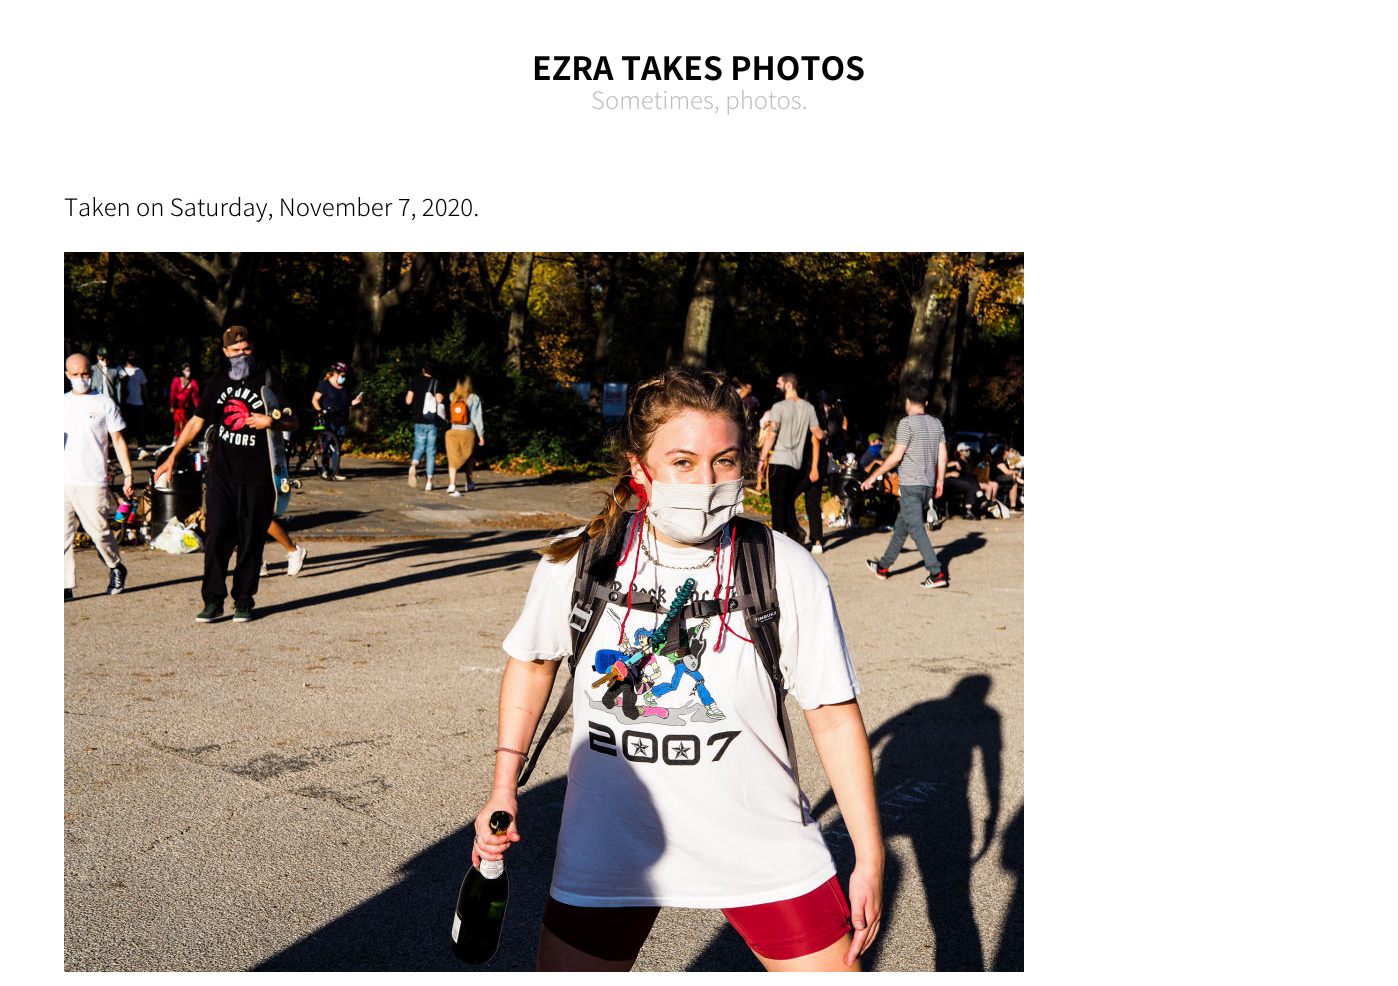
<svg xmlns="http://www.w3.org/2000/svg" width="1398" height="986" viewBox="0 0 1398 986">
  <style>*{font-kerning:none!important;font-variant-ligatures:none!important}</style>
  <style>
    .t1 { font: bold 32px Noto Sans HK; fill: #000; }
    .t2 { font: 300 24px Noto Sans HK; fill: #c0c0c0; }
    .t3 { font: 300 24px Noto Sans HK; fill: #000; }
  </style>
  <rect width="100%" height="100%" fill="#fff"/>
  <text x="532" y="80" class="t1">EZRA TAKES PHOTOS</text>
  <text x="591" y="109" class="t2">Sometimes, photos.</text>
  <text x="64" y="216" class="t3">Taken on Saturday, November 7, 2020.</text>
  <image x="64" y="252" width="960" height="720" href="images/1.png"/>
</svg>
